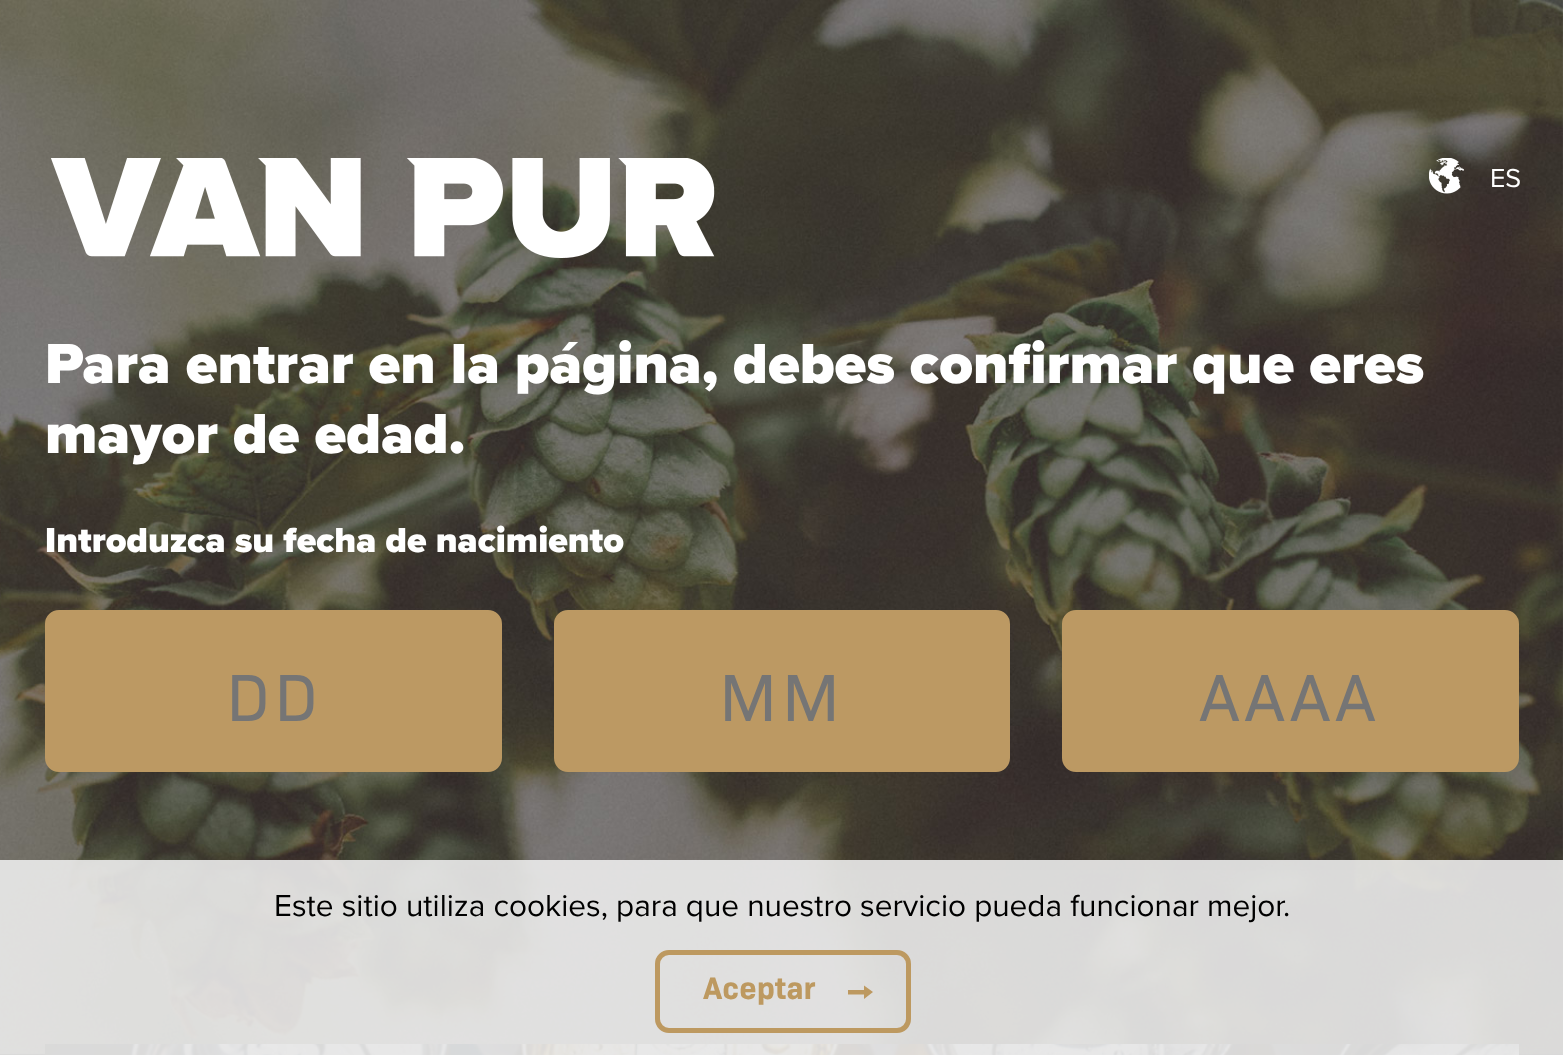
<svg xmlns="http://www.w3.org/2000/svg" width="1563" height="1055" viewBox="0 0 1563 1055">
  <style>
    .t1 { font: 27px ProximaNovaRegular; fill: #fff; }
    .t2 { font: 900 58.5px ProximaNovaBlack; fill: #fff; }
    .t3 { font: 900 36px ProximaNovaBlack; fill: #fff; }
    .t4 { font: 67.5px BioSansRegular; letter-spacing: 4.5px; fill: #757575; }
    .t5 { font: 31.5px ProximaNovaRegular; fill: #000; }
    .t6 { font: bold 31.5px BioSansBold; fill: #bd9960; }
  </style>
  <rect width="100%" height="100%" fill="#fff"/>
  <image x="0" y="0" width="1563" height="1055" href="images/1.png"/>
  <image x="1429" y="158" width="35" height="36" href="images/2.png"/>
  <text x="1490" y="187" class="t1">ES</text>
  <image x="51" y="158" width="664" height="100" href="images/3.png"/>
  <text x="45" y="383" class="t2">Para entrar en la página, debes confirmar que eres</text>
  <text x="45" y="453" class="t2">mayor de edad.</text>
  <text x="45" y="552" class="t3">Introduzca su fecha de nacimiento</text>
  <rect x="46" y="611" width="455" height="160" rx="13" fill="#bc9963" stroke="#bc9963" stroke-width="2"/>
  <text x="226" y="721" class="t4">DD</text>
  <rect x="555" y="611" width="454" height="160" rx="13" fill="#bc9963" stroke="#bc9963" stroke-width="2"/>
  <text x="719" y="721" class="t4">MM</text>
  <rect x="1063" y="611" width="455" height="160" rx="13" fill="#bc9963" stroke="#bc9963" stroke-width="2"/>
  <text x="1199" y="721" class="t4">AAAA</text>
  <image x="45" y="1044" width="1474" height="11" href="images/4.png"/>
  <rect x="0" y="860" width="1563" height="195" fill="#ececece6"/>
  <text x="274" y="916" class="t5">Este sitio utiliza cookies, para que nuestro servicio pueda funcionar mejor.</text>
  <path d="M848 990H864V994.5H848ZM873 992L864 985.5V999L873 992" fill="#bd9960" fill-rule="evenodd"/>
  <rect x="657.5" y="952.5" width="251" height="78" rx="11.5" fill="none" stroke="#bd9960" stroke-width="5"/>
  <text x="703" y="999" class="t6">Aceptar</text>
</svg>
